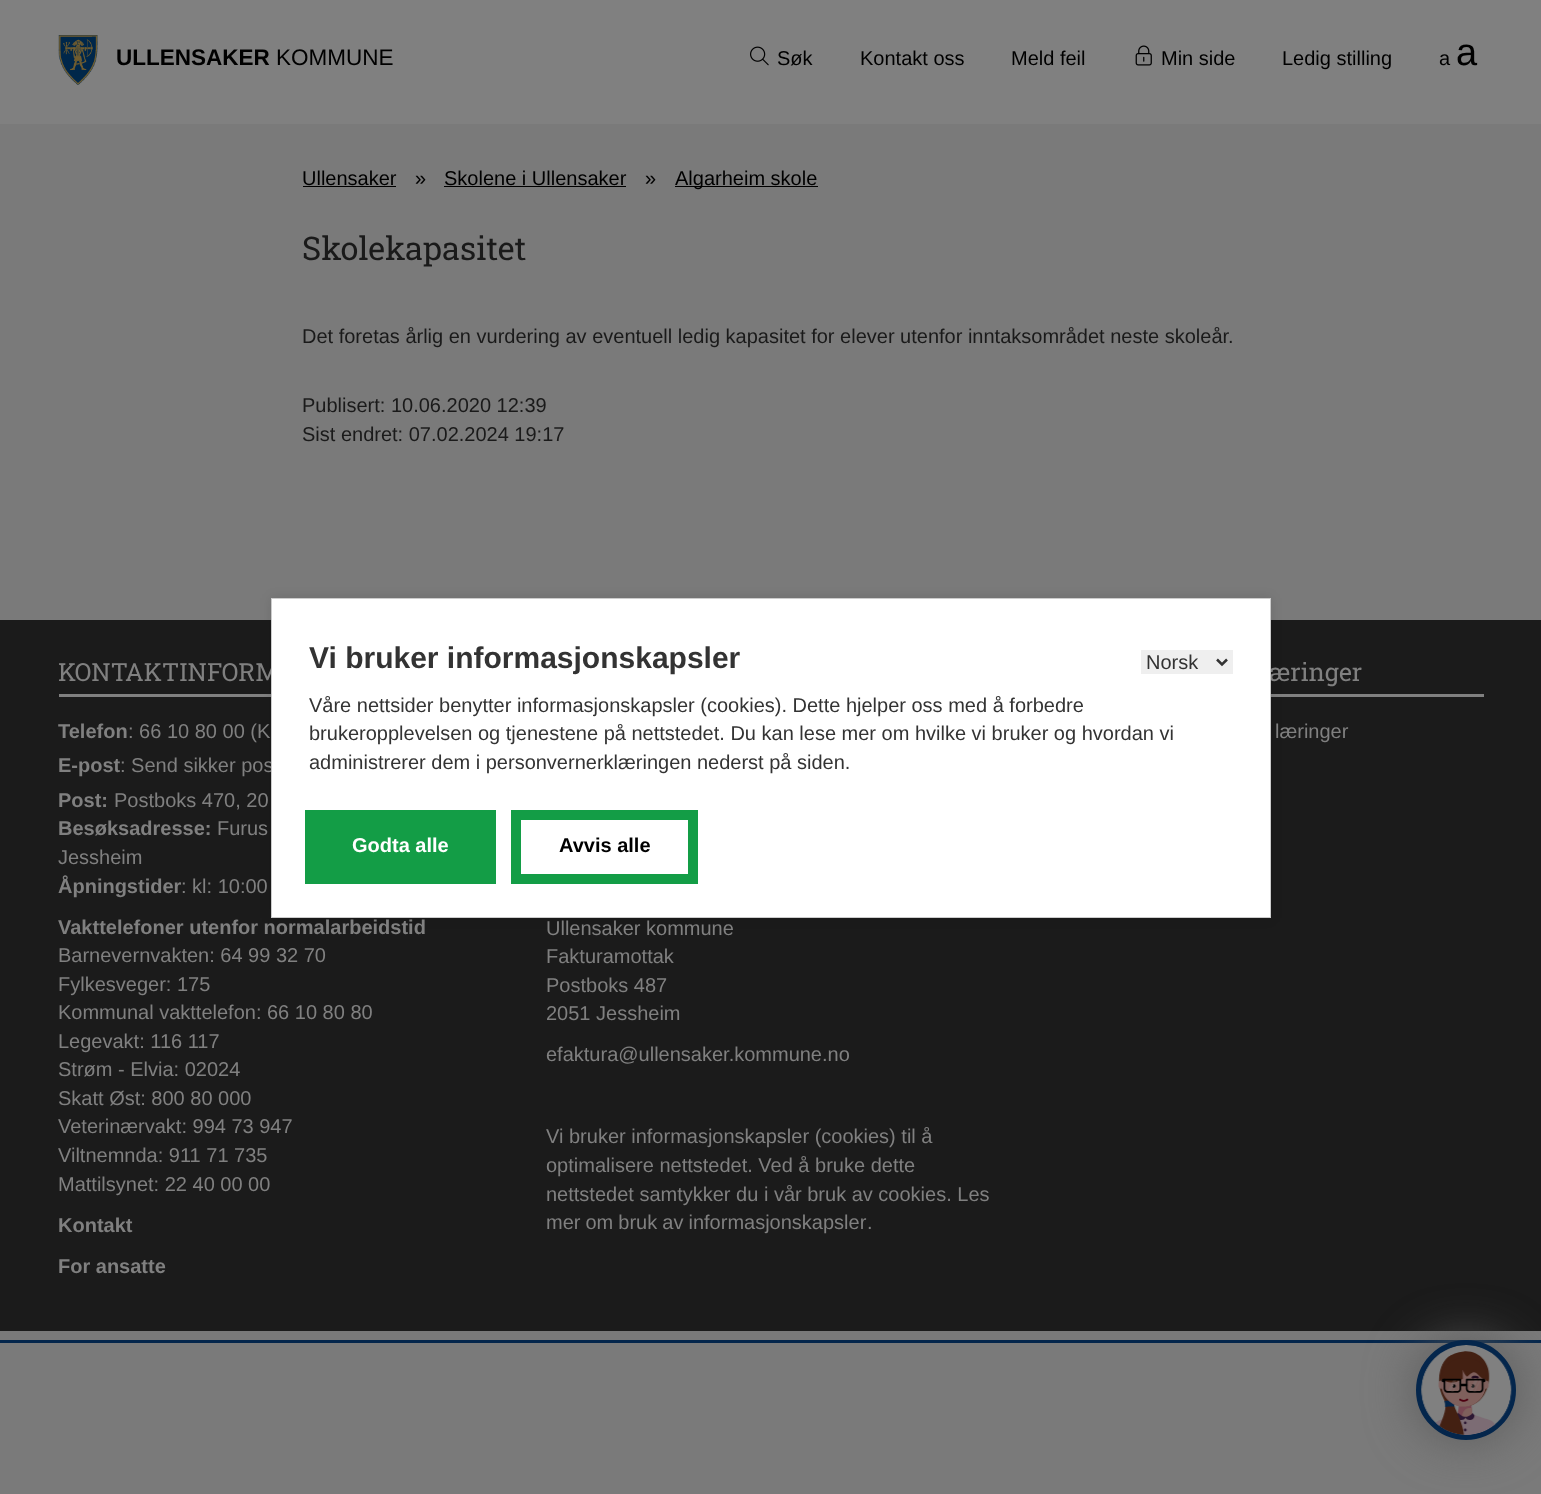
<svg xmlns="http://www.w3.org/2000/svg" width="1541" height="1494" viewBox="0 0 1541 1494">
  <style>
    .t1 { font: bold 22.5px Liberation Sans; fill: #000; }
    .t2 { font: 22.5px Liberation Sans; fill: #000; }
    .t3 { font: 20px Liberation Sans; fill: #000; }
    .t4 { font: 38px Liberation Sans; fill: #000; }
    .t5 { font: 32.5px Roboto Slab; fill: #1a1a1a; }
    .t6 { font: 20px Liberation Sans; fill: #1a1a1a; }
    .t7 { font: 25px Roboto Slab; fill: #808080; }
    .t8 { font: 20px Liberation Sans; fill: #808080; }
    .t9 { font: bold 30px Liberation Sans; fill: #333; }
    .t10 { font: 20px Liberation Sans; fill: #333; }
    .t11 { font: bold 20px Liberation Sans; fill: #fff; }
    .t12 { font: bold 20px Liberation Sans; fill: #000; }
    .t13 { font: bold 20px Liberation Sans; fill: #808080; }
  </style>
  <rect width="100%" height="100%" fill="#7a7a7a"/>
  <rect x="0" y="0" width="1541" height="124" fill="#808080"/>
  <image x="58" y="35" width="40" height="50" href="images/1.png"/>
  <text x="116" y="65" class="t1">ULLENSAKER</text>
  <text x="276" y="65" class="t2">KOMMUNE</text>
  <image x="750" y="46" width="19" height="20" href="images/2.png"/>
  <text x="777" y="65" class="t3">Søk</text>
  <text x="860" y="65" class="t3">Kontakt oss</text>
  <text x="1011" y="65" class="t3">Meld feil</text>
  <image x="1135" y="45" width="17" height="21" href="images/3.png"/>
  <text x="1161" y="65" class="t3">Min side</text>
  <text x="1282" y="65" class="t3">Ledig stilling</text>
  <text x="1439" y="65" class="t3">a</text>
  <text x="1456" y="65" class="t4">a</text>
  <text x="302" y="185" class="t3">Ullensaker</text>
  <rect x="303" y="186" width="93" height="1" fill="#000"/>
  <text x="415" y="185" class="t3">»</text>
  <text x="444" y="185" class="t3">Skolene i Ullensaker</text>
  <rect x="444" y="186" width="182" height="1" fill="#000"/>
  <text x="645" y="185" class="t3">»</text>
  <rect x="675" y="186" width="143" height="1" fill="#000"/>
  <text x="675" y="185" class="t3">Algarheim skole</text>
  <text x="302" y="260" class="t5">Skolekapasitet</text>
  <text x="302" y="343" class="t6">Det foretas årlig en vurdering av eventuell ledig kapasitet for elever utenfor inntaksområdet neste skoleår.</text>
  <text x="302" y="412" class="t6">Publisert: 10.06.2020 12:39</text>
  <text x="302" y="441" class="t6">Sist endret: 07.02.2024 19:17</text>
  <rect x="0" y="620" width="1541" height="711" fill="#1b1b1b"/>
  <rect x="59" y="694" width="212" height="3" fill="#808080"/>
  <rect x="1271" y="694" width="213" height="3" fill="#808080"/>
  <rect x="271" y="598" width="1000" height="320" fill="#0000001a" filter="blur(6px)"/>
  <text x="58" y="681" class="t7">KONTAKTINFORM</text>
  <text x="120" y="772" class="t8">: Send sikker pos</text>
  <text x="1269" y="681" class="t7">æringer</text>
  <rect x="271.5" y="598.5" width="999" height="319" fill="#fff" stroke="#ccc"/>
  <text x="309" y="668" class="t9">Vi bruker informasjonskapsler</text>
  <rect x="1141" y="650" width="92" height="24" fill="#efefef"/>
  <path d="M1217 659.5L1222 664.5L1227 659.5" fill="none" stroke="#333" stroke-width="2.5"/>
  <text x="1146" y="669" class="t10">Norsk</text>
  <text x="309" y="712" class="t10">Våre nettsider benytter informasjonskapsler (cookies). Dette hjelper oss med å forbedre</text>
  <text x="309" y="740" class="t10">brukeropplevelsen og tjenestene på nettstedet. Du kan lese mer om hvilke vi bruker og hvordan vi</text>
  <text x="309" y="769" class="t10">administrerer dem i personvernerklæringen nederst på siden.</text>
  <rect x="307.5" y="812.5" width="186" height="69" fill="none" stroke="#139d46" stroke-width="5"/>
  <rect x="310" y="815" width="181" height="64" fill="#139d46"/>
  <text x="352" y="852" class="t11">Godta alle</text>
  <rect x="513.5" y="812.5" width="182" height="69" fill="none" stroke="#139d46" stroke-width="5"/>
  <rect x="518.5" y="817.5" width="172" height="59" fill="none" stroke="#139d46" stroke-width="5"/>
  <text x="559" y="852" class="t12">Avvis alle</text>
  <text x="58" y="738" class="t13">Telefon</text>
  <text x="128" y="738" class="t8">: 66 10 80 00 (K</text>
  <text x="58" y="772" class="t13">E-post</text>
  <text x="58" y="807" class="t13">Post:</text>
  <text x="114" y="807" class="t8">Postboks 470, 20</text>
  <text x="58" y="835" class="t13">Besøksadresse:</text>
  <text x="217" y="835" class="t8">Furus</text>
  <text x="58" y="864" class="t8">Jessheim</text>
  <text x="58" y="893" class="t13">Åpningstider</text>
  <text x="181" y="893" class="t8">: kl: 10:00</text>
  <text x="58" y="934" class="t13">Vakttelefoner utenfor normalarbeidstid</text>
  <text x="58" y="962" class="t8">Barnevernvakten: 64 99 32 70</text>
  <text x="58" y="991" class="t8">Fylkesveger: 175</text>
  <text x="58" y="1019" class="t8">Kommunal vakttelefon: 66 10 80 80</text>
  <text x="58" y="1048" class="t8">Legevakt: 116 117</text>
  <text x="58" y="1076" class="t8">Strøm - Elvia: 02024</text>
  <text x="58" y="1105" class="t8">Skatt Øst: 800 80 000</text>
  <text x="58" y="1133" class="t8">Veterinærvakt: 994 73 947</text>
  <text x="58" y="1162" class="t8">Viltnemnda: 911 71 735</text>
  <text x="58" y="1191" class="t8">Mattilsynet: 22 40 00 00</text>
  <text x="58" y="1232" class="t13">Kontakt</text>
  <text x="58" y="1273" class="t13">For ansatte</text>
  <text x="546" y="935" class="t8">Ullensaker kommune</text>
  <text x="546" y="963" class="t8">Fakturamottak</text>
  <text x="546" y="992" class="t8">Postboks 487</text>
  <text x="546" y="1020" class="t8">2051 Jessheim</text>
  <text x="546" y="1061" class="t8">efaktura@ullensaker.kommune.no</text>
  <text x="546" y="1143" class="t8">Vi bruker informasjonskapsler (cookies) til å</text>
  <text x="546" y="1172" class="t8">optimalisere nettstedet. Ved å bruke dette</text>
  <text x="546" y="1201" class="t8">nettstedet samtykker du i vår bruk av cookies. Les</text>
  <text x="546" y="1229" word-spacing="-0.5" class="t8">mer om bruk av informasjonskapsler</text>
  <text x="867" y="1229" class="t8">.</text>
  <text x="1275" y="738" class="t8">læringer</text>
  <rect x="0" y="1340" width="1541" height="3" fill="#04264c"/>
  <rect x="1416" y="1340" width="100" height="100" rx="50" fill="#5a5a5a" filter="blur(25px)"/>
  <circle cx="1466" cy="1390" r="47.5" fill="#04264c" stroke="#04264c" stroke-width="5"/>
  <image x="1421" y="1345" width="91" height="90" href="images/4.png"/>
</svg>
